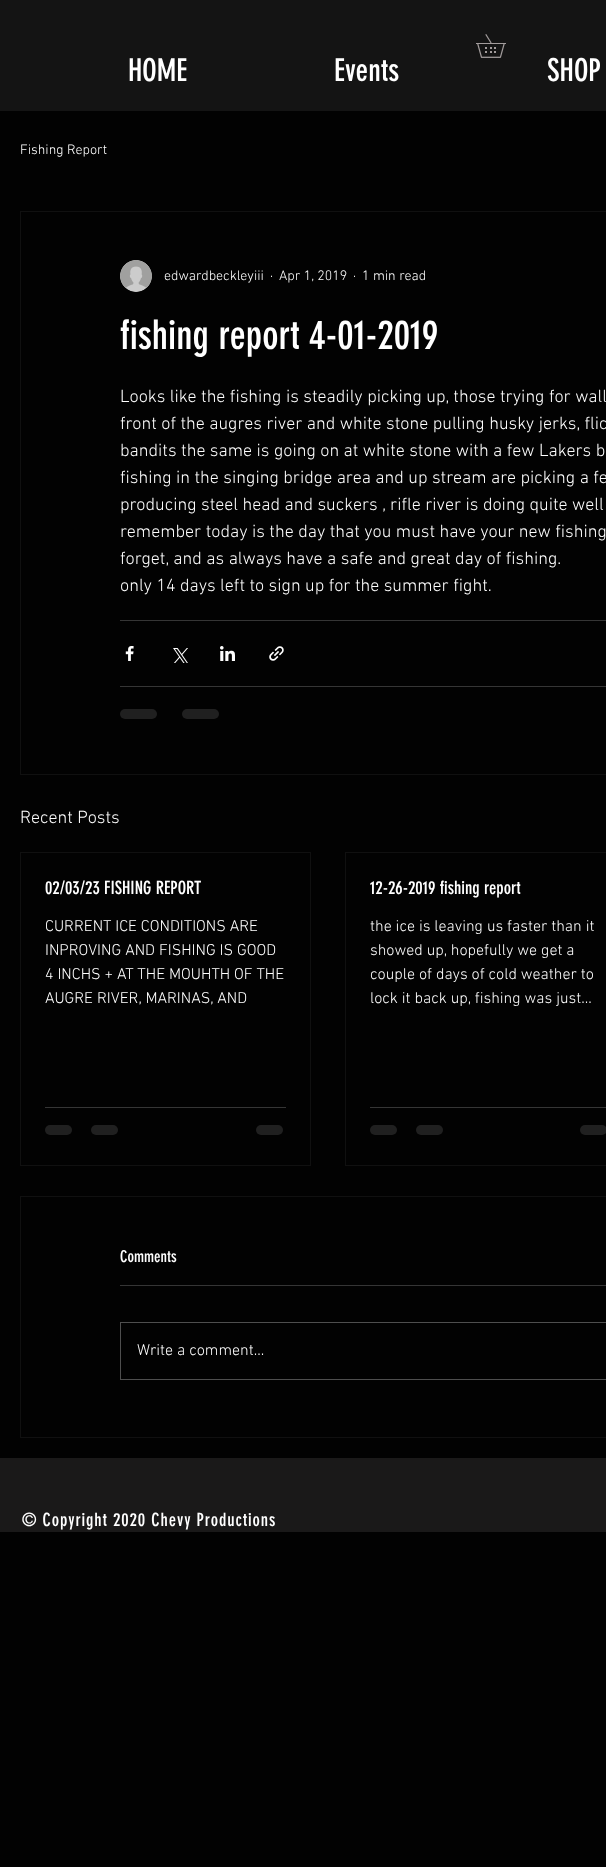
<svg xmlns="http://www.w3.org/2000/svg" width="606" height="1867" viewBox="0 0 606 1867">
  <style>
    .t1 { font: 31px 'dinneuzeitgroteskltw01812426'; fill: #fff; }
    .t2 { font: 300 14px 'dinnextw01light'; fill: #fff; }
    .t3 { font: 40px 'dinneuzeitgroteskltw01812426'; fill: #fff; }
    .t4 { font: 300 18px 'dinnextw01light'; fill: #fff; }
    .t5 { font: 18px 'dinneuzeitgroteskltw01812426'; fill: #fff; }
    .t6 { font: 300 16px 'dinnextw01light'; fill: #fff; }
    .t7 { font: 16px 'dinneuzeitgroteskltw01812426'; fill: #fff; }
    .t8 { font: 18px 'dinneuzeitgroteskltw01812426'; letter-spacing: 0.9px; fill: #fff; }
  </style>
  <rect width="100%" height="100%" fill="#020202"/>
  <rect x="0" y="0" width="606" height="111" fill="#141414"/>
  <image x="476" y="34" width="30" height="24" href="images/1.png"/>
  <text x="128" y="81" class="t1">HOME</text>
  <text x="334" y="81" class="t1">Events</text>
  <text x="547" y="81" class="t1">SHOP</text>
  <text x="20" y="154" class="t2">Fishing Report</text>
  <rect x="20.5" y="211.5" width="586" height="563" fill="none" stroke="#101010"/>
  <image x="120" y="260" width="32" height="32" href="images/2.png"/>
  <text x="164" y="280" class="t2">edwardbeckleyiii</text>
  <text x="270" y="280" class="t2">·</text>
  <text x="279" y="280" class="t2">Apr 1, 2019</text>
  <text x="353" y="280" class="t2">·</text>
  <text x="362" y="280" class="t2">1 min read</text>
  <text x="120" y="349" class="t3">fishing report 4-01-2019</text>
  <text x="120" y="402" class="t4">Looks like the fishing is steadily picking up, those trying for wall</text>
  <text x="120" y="429" class="t4">front of the augres river and white stone pulling husky jerks, flic</text>
  <text x="120" y="456" class="t4">bandits the same is going on at white stone with a few Lakers b</text>
  <text x="120" y="483" class="t4">fishing in the singing bridge area and up stream are picking a fe</text>
  <text x="120" y="510" class="t4">producing steel head and suckers , rifle river is doing quite well</text>
  <text x="120" y="537" class="t4">remember today is the day that you must have your new fishing</text>
  <text x="120" y="564" class="t4">forget, and as always have a safe and great day of fishing.</text>
  <text x="120" y="591" class="t4">only 14 days left to sign up for the summer fight.</text>
  <rect x="120" y="620" width="486" height="1" fill="#353535"/>
  <image x="125" y="646" width="9" height="15" href="images/3.png"/>
  <image x="173" y="648" width="15" height="15" href="images/4.png"/>
  <image x="220" y="646" width="15" height="15" href="images/5.png"/>
  <image x="269" y="646" width="15" height="15" href="images/6.png"/>
  <rect x="120" y="686" width="486" height="1" fill="#353535"/>
  <rect x="120" y="709" width="37" height="10" rx="5" fill="#202020"/>
  <rect x="182" y="709" width="37" height="10" rx="5" fill="#202020"/>
  <text x="20" y="823" class="t4">Recent Posts</text>
  <rect x="20.5" y="852.5" width="290" height="313" fill="none" stroke="#101010"/>
  <text x="45" y="894" class="t5">02/03/23 FISHING REPORT</text>
  <text x="45" y="931" class="t6">CURRENT ICE CONDITIONS ARE</text>
  <text x="45" y="955" class="t6">INPROVING AND FISHING IS GOOD</text>
  <text x="45" y="979" class="t6">4 INCHS + AT THE MOUHTH OF THE</text>
  <text x="45" y="1003" class="t6">AUGRE RIVER, MARINAS, AND</text>
  <rect x="45" y="1107" width="241" height="1" fill="#353535"/>
  <rect x="45" y="1125" width="27" height="10" rx="5" fill="#202020"/>
  <rect x="91" y="1125" width="27" height="10" rx="5" fill="#202020"/>
  <rect x="256" y="1125" width="27" height="10" rx="5" fill="#202020"/>
  <rect x="345.5" y="852.5" width="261" height="313" fill="none" stroke="#101010"/>
  <text x="370" y="894" class="t5">12-26-2019 fishing report</text>
  <text x="370" y="931" class="t6">the ice is leaving us faster than it</text>
  <text x="370" y="955" class="t6">showed up, hopefully we get a</text>
  <text x="370" y="979" class="t6">couple of days of cold weather to</text>
  <text x="370" y="1003" class="t6">lock it back up, fishing was just...</text>
  <rect x="370" y="1107" width="236" height="1" fill="#353535"/>
  <rect x="370" y="1125" width="27" height="10" rx="5" fill="#202020"/>
  <rect x="416" y="1125" width="27" height="10" rx="5" fill="#202020"/>
  <rect x="580" y="1125" width="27" height="10" rx="5" fill="#202020"/>
  <rect x="20.5" y="1196.5" width="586" height="241" fill="none" stroke="#101010"/>
  <text x="120" y="1262" class="t7">Comments</text>
  <rect x="120" y="1285" width="486" height="1" fill="#353535"/>
  <rect x="120.5" y="1322.5" width="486" height="57" fill="none" stroke="#4e4e4e"/>
  <text x="137" y="1355" class="t6">Write a comment...</text>
  <rect x="0" y="1458" width="606" height="74" fill="#1a1919"/>
  <text x="22" y="1526" class="t8">© Copyright 2020 Chevy Productions</text>
</svg>
